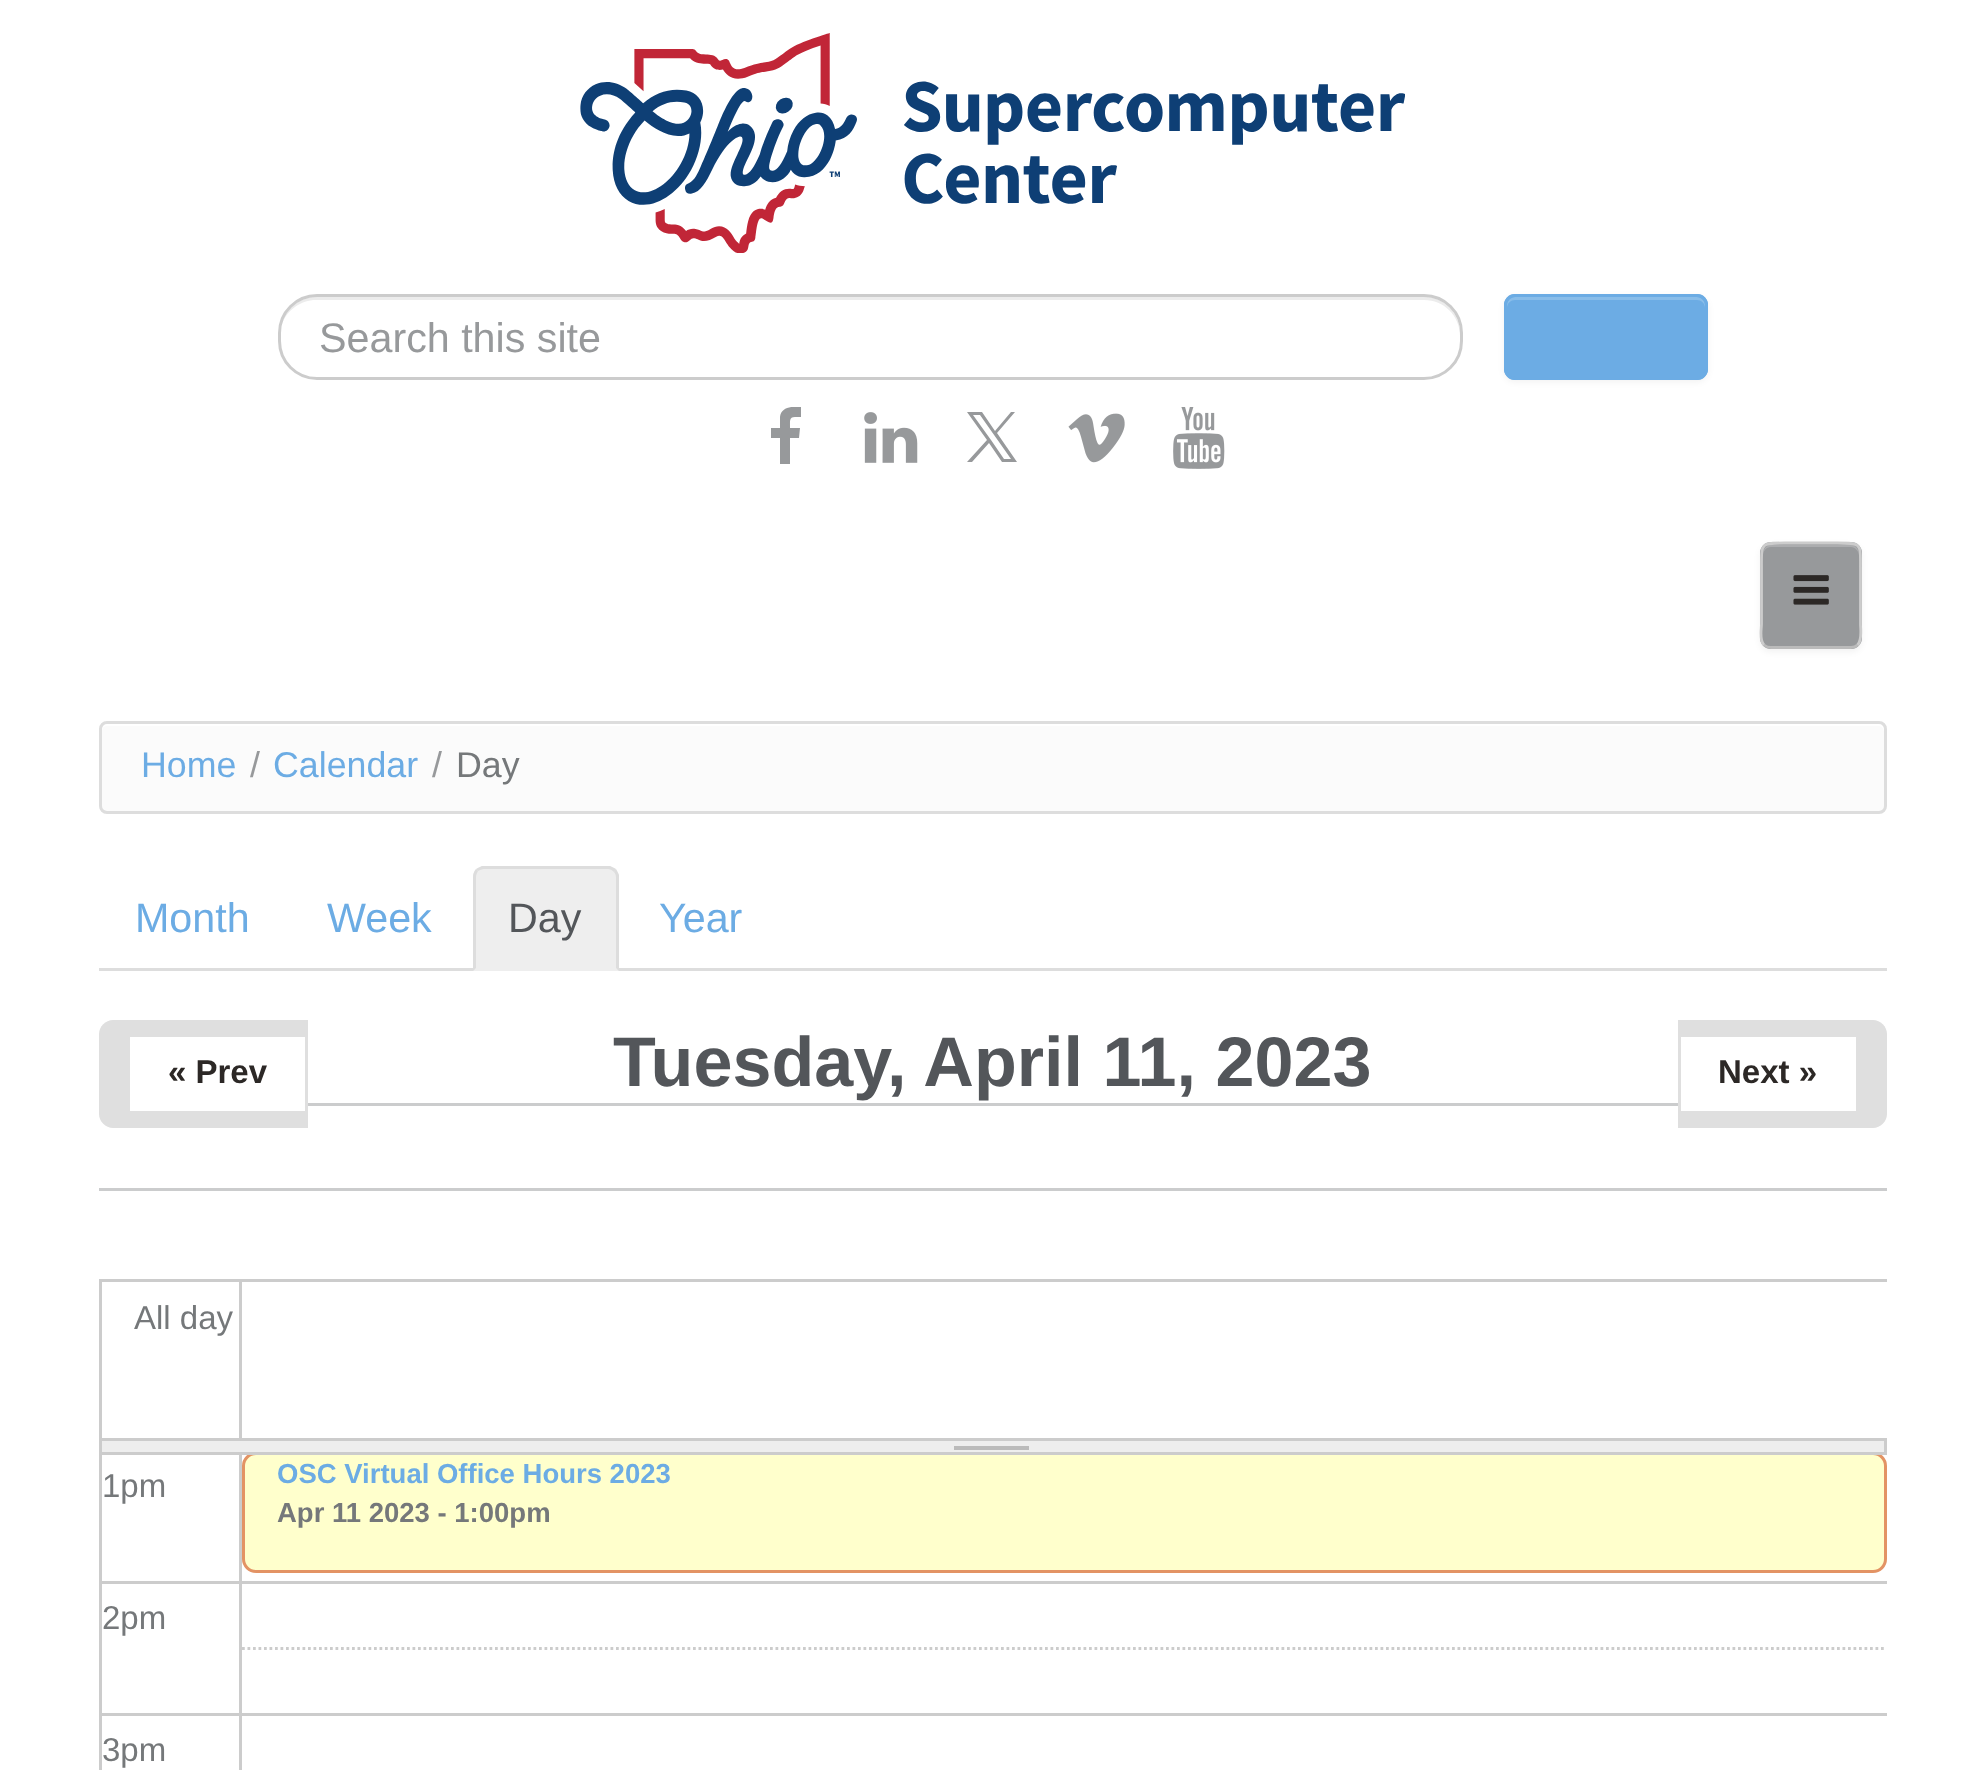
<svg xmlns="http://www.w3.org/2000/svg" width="1985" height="1770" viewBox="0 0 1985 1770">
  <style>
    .t1 { font: 41.25px Liberation Sans; fill: #97999b; }
    .t2 { font: 35.75px Liberation Sans; fill: #6cace4; }
    .t3 { font: 35.75px Liberation Sans; fill: #97999b; }
    .t4 { font: 35.75px Liberation Sans; fill: #75787a; }
    .t5 { font: 41.25px Liberation Sans; fill: #6cace4; }
    .t6 { font: 41.25px Liberation Sans; fill: #53565a; }
    .t7 { font: bold 70.1px Liberation Sans; fill: #53565a; }
    .t8 { font: bold 33px Liberation Sans; fill: #2c2826; }
    .t9 { font: 33px Liberation Sans; fill: #75787a; }
    .t10 { font: bold 27.5px Liberation Sans; fill: #6cace4; }
    .t11 { font: bold 27.5px Liberation Sans; fill: #75787a; }
  </style>
  <defs>
    <clipPath id="clip1"><rect x="755" y="407" width="62" height="62"/></clipPath>
    <clipPath id="clip2"><rect x="102" y="1455" width="1785" height="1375"/></clipPath>
  </defs>
  <rect width="100%" height="100%" fill="#fff"/>
  <image x="580" y="33" width="825" height="220" href="images/1.png"/>
  <path d="M316 300H1424C1444 300 1460 316 1460 336V333C1460 313 1444 297 1424 297H317C300 297 286 308 282 324C287 310 301 300 316 300Z" fill="#ececec"/>
  <rect x="279.5" y="295.5" width="1182" height="83" rx="37.5" fill="none" stroke="#ccc" stroke-width="3"/>
  <text x="319" y="352" class="t1">Search this site</text>
  <rect x="1504" y="297" width="204" height="85" rx="11" fill="#0000000d" filter="blur(3px)"/>
  <rect x="1504" y="294" width="204" height="86" rx="11" fill="#6cace4"/>
  <path d="M1515 300H1697C1701 300 1705 303 1705 308V305C1705 301 1701 297 1697 297H1515C1511 297 1507 301 1507 305V308C1507 303 1511 300 1515 300Z" fill="#89bde9"/>
  <rect x="1505.5" y="295.5" width="201" height="83" rx="9.5" fill="none" stroke="#6cace4" stroke-width="3"/>
  <g clip-path="url(#clip1)">
    <path d="M801 407V417C789 417 790 417 790 428H800L799 438H790V464H780V438H771V428H780V417C781 407 792 406 801 407Z" fill="#97999b"/>
  </g>
  <image x="864" y="412" width="54" height="51" href="images/2.png"/>
  <path d="M997 433L1015 412H1011L995 431L982 412H967L987 440L967 462H972L989 443L1002 462H1017ZM991 440L973 415H980L1011 459H1004Z" fill="#97999b"/>
  <image x="1068" y="413" width="57" height="50" href="images/3.png"/>
  <image x="1173" y="407" width="52" height="62" href="images/4.png"/>
  <rect x="1760" y="545" width="102" height="107" rx="11" fill="#0000000d" filter="blur(3px)"/>
  <rect x="1760" y="542" width="102" height="107" rx="11" fill="#97999b"/>
  <path d="M1771 547H1851C1855 547 1859 551 1859 556C1859 542 1849 545 1838 545H1784C1773 545 1763 542 1763 556C1763 551 1766 547 1771 547Z" fill="#acadaf"/>
  <path d="M1857.5 645C1856 646.5 1853.5 647.5 1851 647.5H1771C1768.5 647.5 1766 646.5 1764 645" fill="none" stroke="#bbb" stroke-width="2.8"/>
  <path d="M1764 645C1759 640 1761.5 629 1761.5 624V567C1761.5 543 1760.5 543 1784.5 543H1837.5C1861.5 543 1860.5 543 1860.5 567V624C1860.5 629 1862.5 640 1857.5 645" fill="none" stroke="#ccc" stroke-width="2.8"/>
  <image x="1793" y="575" width="36" height="30" href="images/5.png"/>
  <rect x="99" y="721" width="1788" height="93" rx="8" fill="#fbfbfb"/>
  <path d="M107 726H1878C1881 726 1884 728 1884 732V729C1884 726 1881 723 1878 723H108C105 723 102 726 102 729V732C102 728 104 726 107 726Z" fill="#fff"/>
  <rect x="100.5" y="722.5" width="1785" height="90" rx="6.5" fill="none" stroke="#ddd" stroke-width="3"/>
  <text x="141" y="777" class="t2">Home</text>
  <text x="250" y="777" class="t3">/</text>
  <text x="273" y="777" class="t2">Calendar</text>
  <text x="432" y="777" class="t3">/</text>
  <text x="456" y="777" class="t4">Day</text>
  <rect x="99" y="968" width="1788" height="3" fill="#ddd"/>
  <text x="135" y="932" class="t5">Month</text>
  <text x="327" y="932" class="t5">Week</text>
  <path d="M484 866H608C614 866 619 871 619 877V971H473V877C473 871 478 866 484 866Z" fill="#eee"/>
  <path d="M484 869C482 869 480 870 478 871L476 869C478 868 480 867 482 866H610C612 867 614 868 616 869L614 872C612 870 610 869 608 869Z" fill="#ddd"/>
  <path d="M616 869C617 871 618 873 619 875V971L616 968V877C616 875 615 873 614 872Z" fill="#ddd"/>
  <path d="M473 971L476 968V877C476 875 477 873 478 871L476 869C474 871 473 874 473 877Z" fill="#ddd"/>
  <text x="508" y="932" class="t6">Day</text>
  <text x="659" y="932" class="t5">Year</text>
  <text x="613" y="1086" class="t7">Tuesday, April 11, 2023</text>
  <rect x="308" y="1103" width="1370" height="3" fill="#cbcccd"/>
  <rect x="99" y="1188" width="1788" height="3" fill="#cbcccd"/>
  <path d="M113 1020H308V1128H113C105.5 1128 99 1121.5 99 1114V1034C99 1026.5 105.5 1020 113 1020Z" fill="#dfdfdf"/>
  <rect x="130" y="1037" width="175" height="74" fill="#fff"/>
  <text x="168" y="1083" class="t8">« Prev</text>
  <path d="M1678 1020H1873C1880.5 1020 1887 1026.5 1887 1034V1114C1887 1121.5 1880.5 1128 1873 1128H1678Z" fill="#dfdfdf"/>
  <rect x="1681" y="1037" width="175" height="74" fill="#fff"/>
  <text x="1718" y="1083" class="t8">Next »</text>
  <rect x="99" y="1279" width="1788" height="3" fill="#ccc"/>
  <rect x="99" y="1438" width="1788" height="3" fill="#ccc"/>
  <rect x="99" y="1279" width="3" height="162" fill="#ccc"/>
  <text x="134" y="1329" class="t9">All day</text>
  <rect x="239" y="1282" width="3" height="156" fill="#ccc"/>
  <rect x="102" y="1441" width="1782" height="11" fill="#eee"/>
  <rect x="1884" y="1441" width="3" height="11" fill="#ccc"/>
  <rect x="99" y="1441" width="3" height="11" fill="#ccc"/>
  <rect x="954" y="1446" width="75" height="4" fill="#bbb"/>
  <rect x="99" y="1452" width="1788" height="3" fill="#ccc"/>
  <rect x="99" y="1452" width="3" height="318" fill="#ccc"/>
  <text x="102" y="1497" class="t9">1pm</text>
  <rect x="102" y="1581" width="137" height="3" fill="#ccc"/>
  <text x="102" y="1629" class="t9">2pm</text>
  <rect x="102" y="1713" width="137" height="3" fill="#ccc"/>
  <text x="102" y="1761" class="t9">3pm</text>
  <rect x="239" y="1455" width="3" height="315" fill="#ccc"/>
  <g clip-path="url(#clip2)">
    <rect x="243.5" y="1453.5" width="1642" height="118" rx="12.5" fill="#ffc" stroke="#e39364" stroke-width="3"/>
  </g>
  <text x="277" y="1483" class="t10">OSC Virtual Office Hours 2023</text>
  <text x="277" y="1522" class="t11">Apr 11 2023 - 1:00pm</text>
  <rect x="242" y="1581" width="1645" height="3" fill="#ccc"/>
  <path d="M242 1648.5H1886.5" fill="none" stroke="#ccc" stroke-width="2.8" stroke-dasharray="2.75 2.75"/>
  <rect x="242" y="1713" width="1645" height="3" fill="#ccc"/>
</svg>
